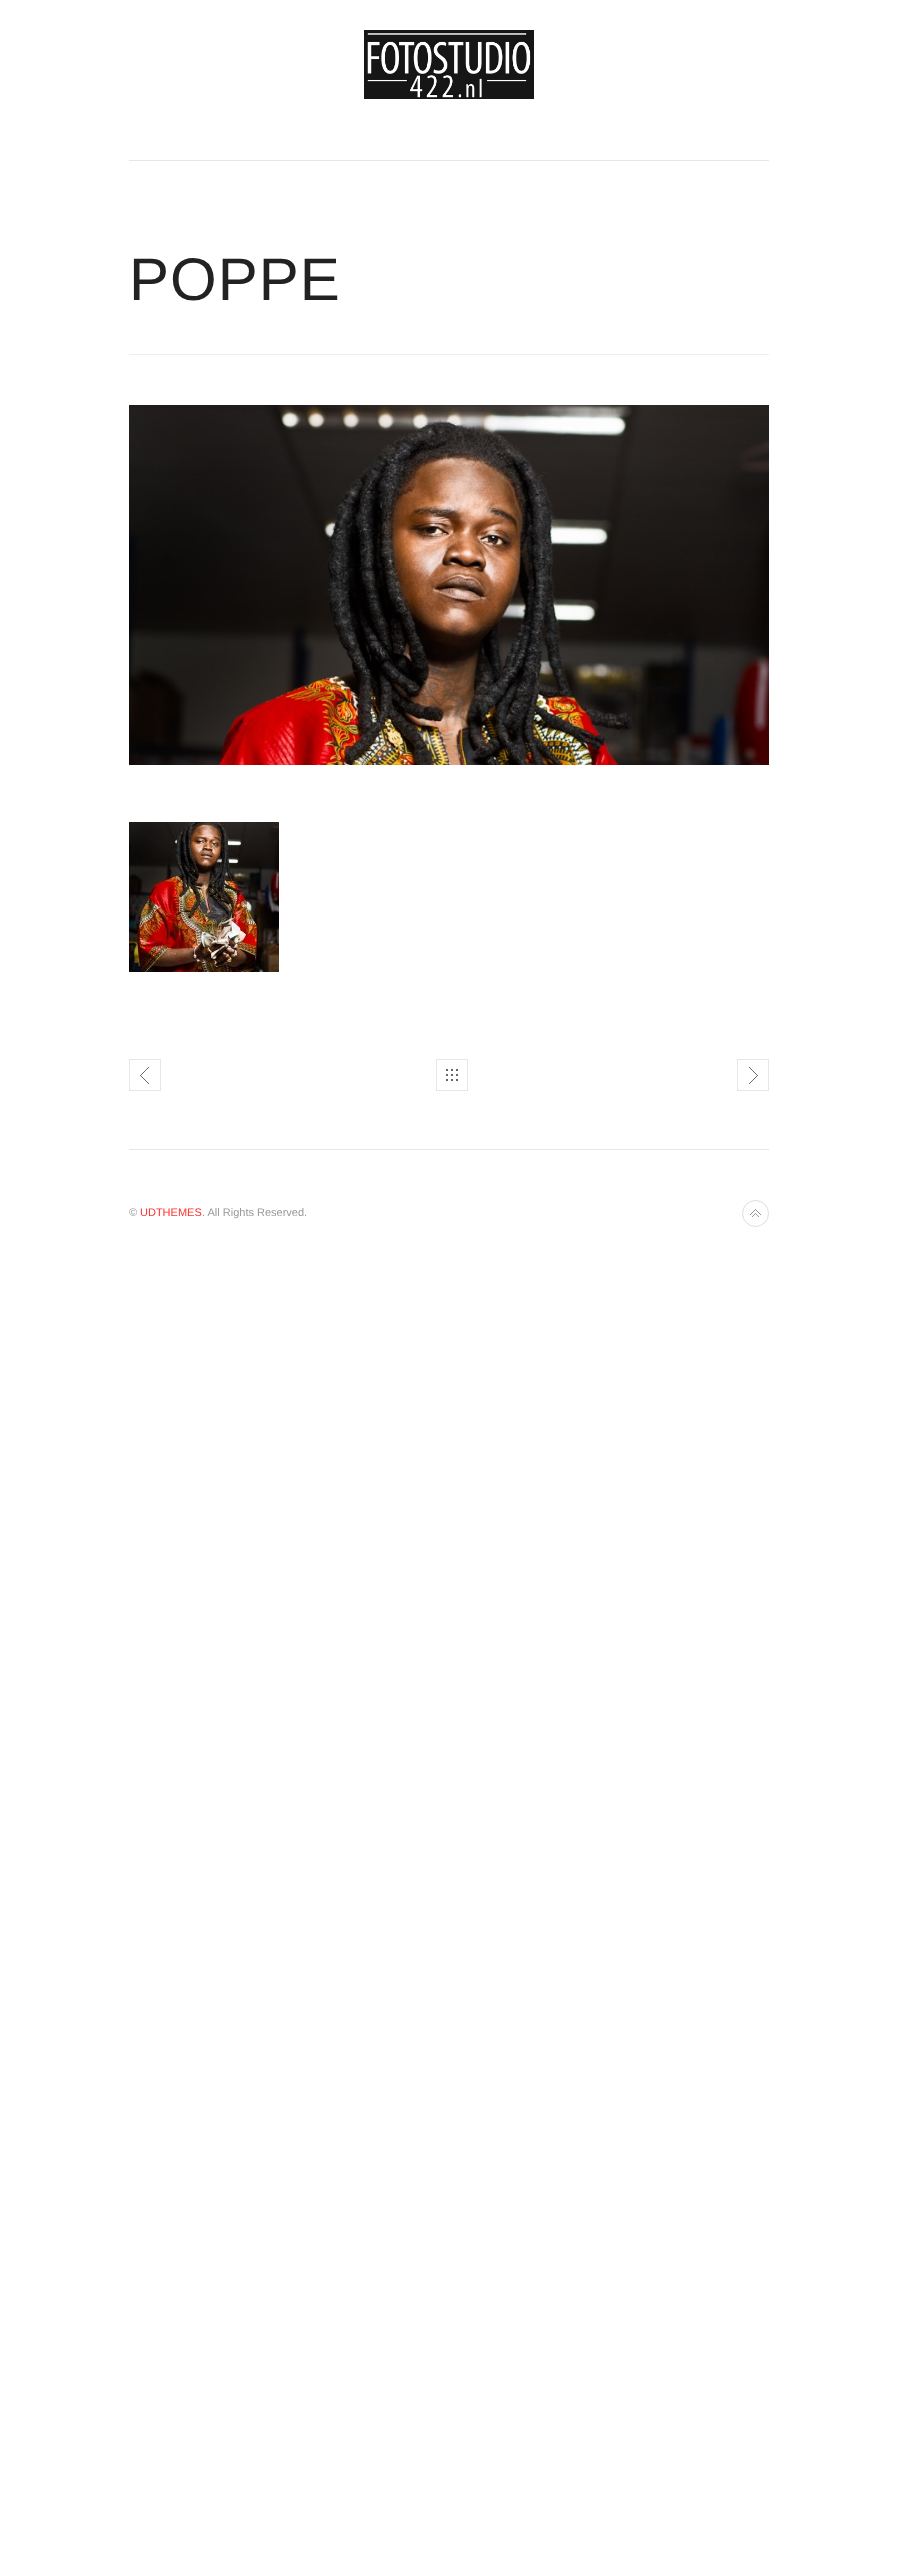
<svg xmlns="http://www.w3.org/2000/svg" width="898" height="2552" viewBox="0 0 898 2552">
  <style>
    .t1 { font: 60px Liberation Sans; letter-spacing: 1px; fill: #222; }
    .t2 { font: 11px Liberation Sans; fill: #999; }
    .t3 { font: 11px Liberation Sans; fill: #ff2e2e; }
  </style>
  <rect width="100%" height="100%" fill="#fff"/>
  <image x="364" y="30" width="170" height="69" href="images/1.png"/>
  <rect x="129" y="160" width="640" height="1" fill="#e6e6e6"/>
  <rect x="129" y="354" width="640" height="1" fill="#eee"/>
  <text x="129" y="300" class="t1">POPPE</text>
  <image x="129" y="405" width="640" height="360" href="images/2.png"/>
  <image x="129" y="822" width="150" height="150" href="images/3.png"/>
  <image x="140" y="1067" width="9" height="17" href="images/4.png"/>
  <rect x="129.5" y="1059.5" width="31" height="31" fill="none" stroke="#e6e6e6"/>
  <image x="446" y="1069" width="12" height="12" href="images/5.png"/>
  <rect x="436.5" y="1059.5" width="31" height="31" fill="none" stroke="#e6e6e6"/>
  <image x="749" y="1067" width="9" height="17" href="images/6.png"/>
  <rect x="737.5" y="1059.5" width="31" height="31" fill="none" stroke="#e6e6e6"/>
  <rect x="129" y="1149" width="640" height="1" fill="#e6e6e6"/>
  <text x="129" y="1216" class="t2">©</text>
  <text x="140" y="1216" class="t3">UDTHEMES</text>
  <text x="202" y="1216" class="t2">. All Rights Reserved.</text>
  <image x="750" y="1209" width="11" height="8" href="images/7.png"/>
  <circle cx="755.5" cy="1213.5" r="13" fill="none" stroke="#ddd"/>
</svg>
